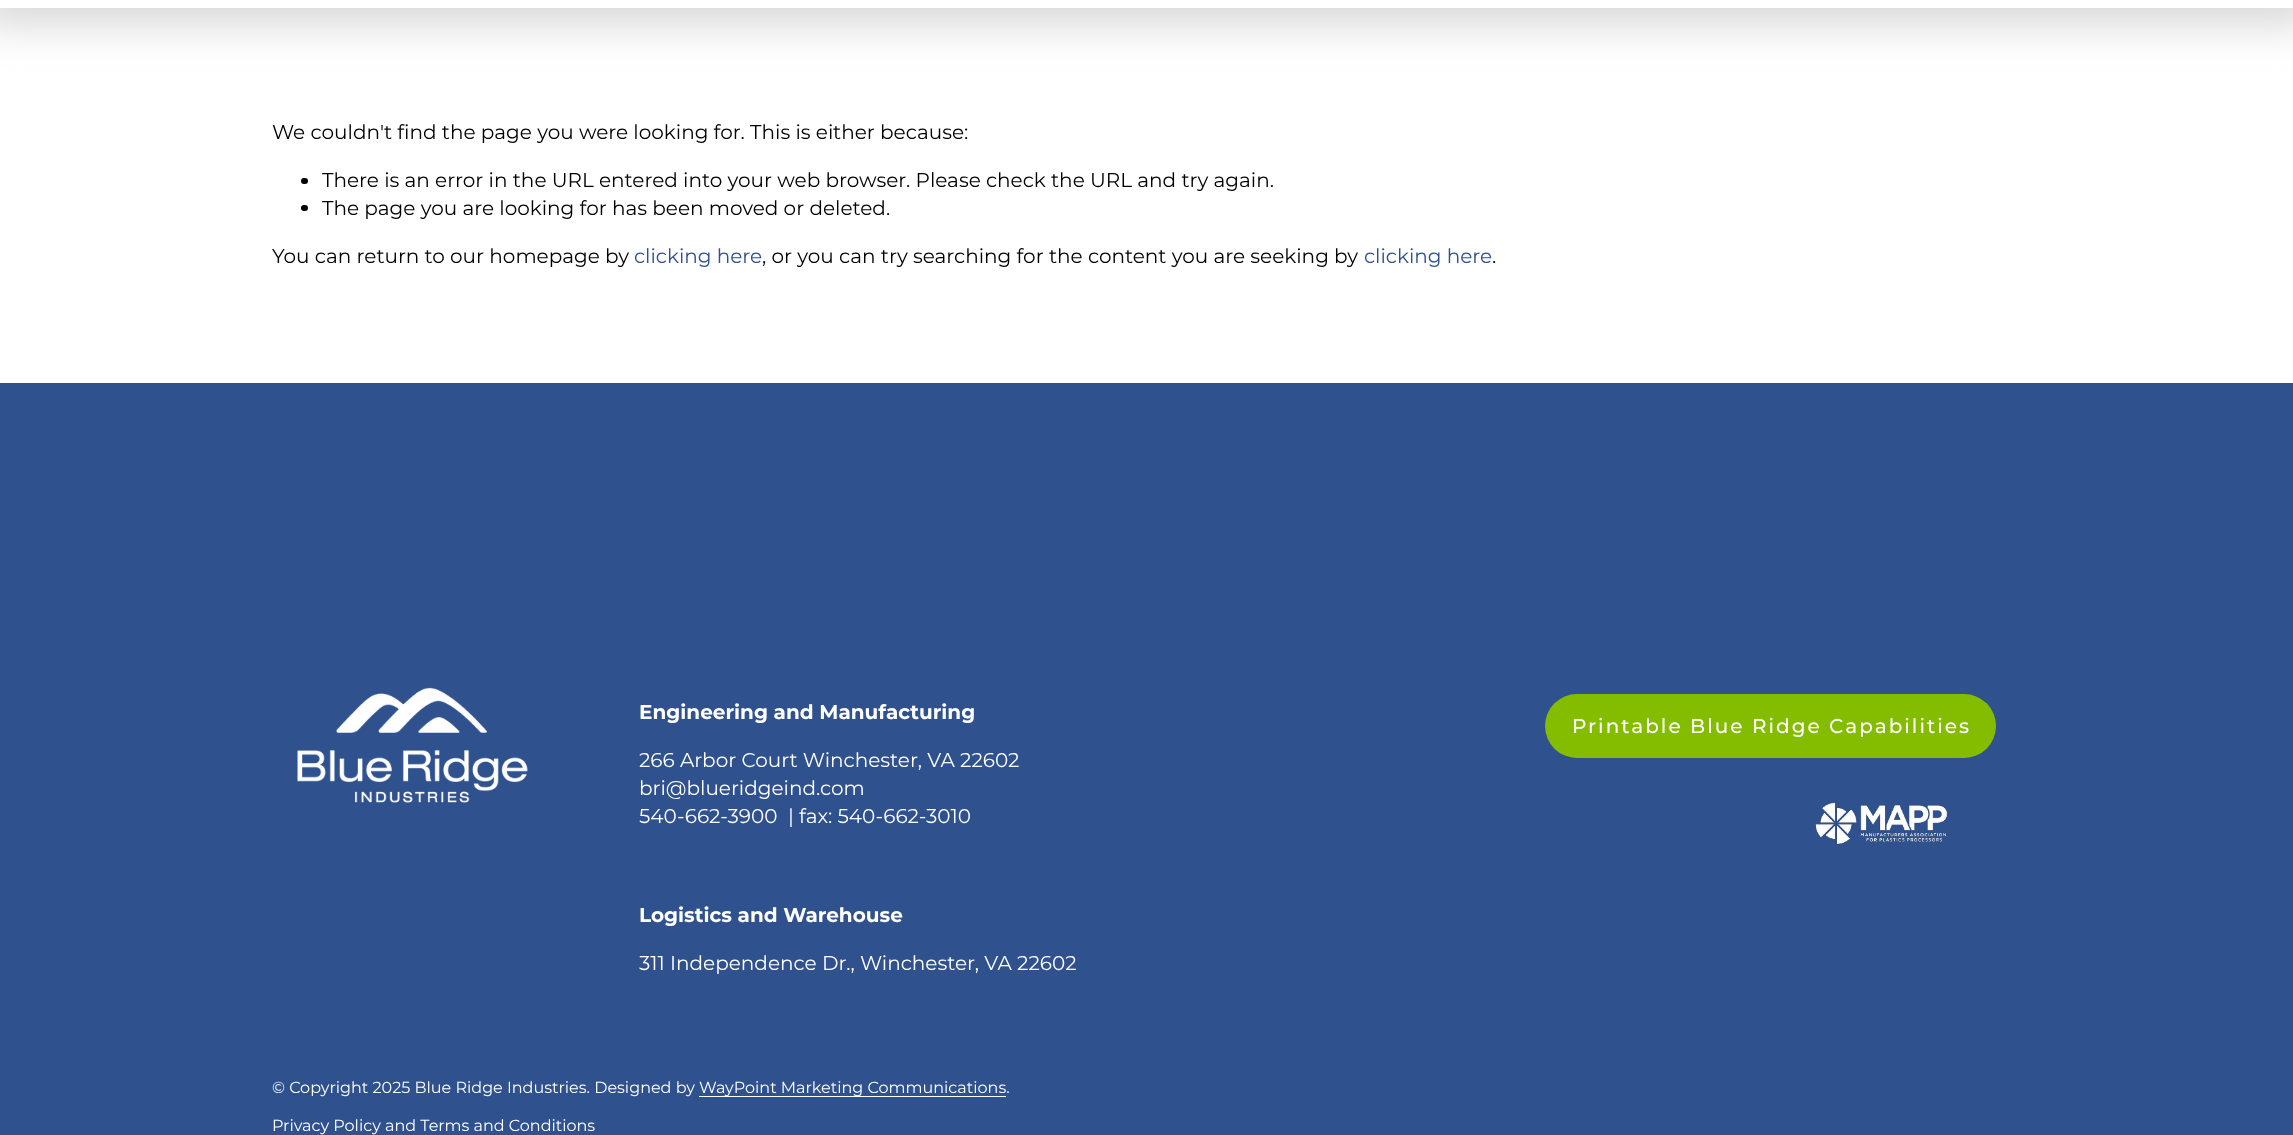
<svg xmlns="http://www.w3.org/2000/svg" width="2293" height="1135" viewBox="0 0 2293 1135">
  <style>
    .t1 { font: 20px Montserrat; fill: #000; }
    .t2 { font: 20px Montserrat; fill: #2f518e; }
    .t3 { font: bold 20px Montserrat; fill: #fff; }
    .t4 { font: 20px Montserrat; fill: #fff; }
    .t5 { font: 500 20px Montserrat; letter-spacing: 2px; fill: #fff; }
    .t6 { font: 16px Montserrat; fill: #fff; }
  </style>
  <rect width="100%" height="100%" fill="#fff"/>
  <rect x="-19" y="-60" width="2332" height="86" fill="#d9d9d9" filter="blur(20px)"/>
  <rect x="0" y="0" width="2293" height="8" fill="#fff"/>
  <text x="272" y="139" class="t1">We couldn't find the page you were looking for. This is either because:</text>
  <rect x="301" y="178" width="7" height="6" rx="3" fill="#000"/>
  <text x="322" y="187" class="t1">There is an error in the URL entered into your web browser. Please check the URL and try again.</text>
  <rect x="301" y="205" width="7" height="6" rx="3" fill="#000"/>
  <text x="322" y="215" class="t1">The page you are looking for has been moved or deleted.</text>
  <text x="272" y="263" class="t1">You can return to our homepage by</text>
  <text x="634" y="263" class="t2">clicking here</text>
  <text x="762" y="263" class="t1">, or you can try searching for the content you are seeking by</text>
  <text x="1364" y="263" class="t2">clicking here</text>
  <text x="1492" y="263" class="t1">.</text>
  <rect x="0" y="383" width="2293" height="752" fill="#2f518e"/>
  <image x="297" y="687" width="231" height="116" href="images/1.png"/>
  <text x="639" y="719" class="t3">Engineering and Manufacturing</text>
  <text x="639" y="767" class="t4">266 Arbor Court Winchester, VA 22602</text>
  <text x="639" y="795" class="t4">bri@blueridgeind.com</text>
  <text x="639" y="823" class="t4">540-662-3900</text>
  <text x="788" y="823" class="t4">| fax: 540-662-3010</text>
  <rect x="1545" y="694" width="451" height="64" rx="32" fill="#84bd00"/>
  <text x="1572" y="733" class="t5">Printable Blue Ridge Capabilities</text>
  <image x="1815" y="802" width="133" height="43" href="images/2.png"/>
  <text x="639" y="922" class="t3">Logistics and Warehouse</text>
  <text x="639" y="970" class="t4">311 Independence Dr., Winchester, VA 22602</text>
  <text x="272" y="1093" class="t6">© Copyright 2025 Blue Ridge Industries. Designed by</text>
  <rect x="699" y="1096" width="307" height="1" fill="#fff"/>
  <text x="699" y="1093" class="t6">WayPoint Marketing Communications.</text>
  <text x="272" y="1131" class="t6">Privacy Policy and Terms and Conditions</text>
</svg>
